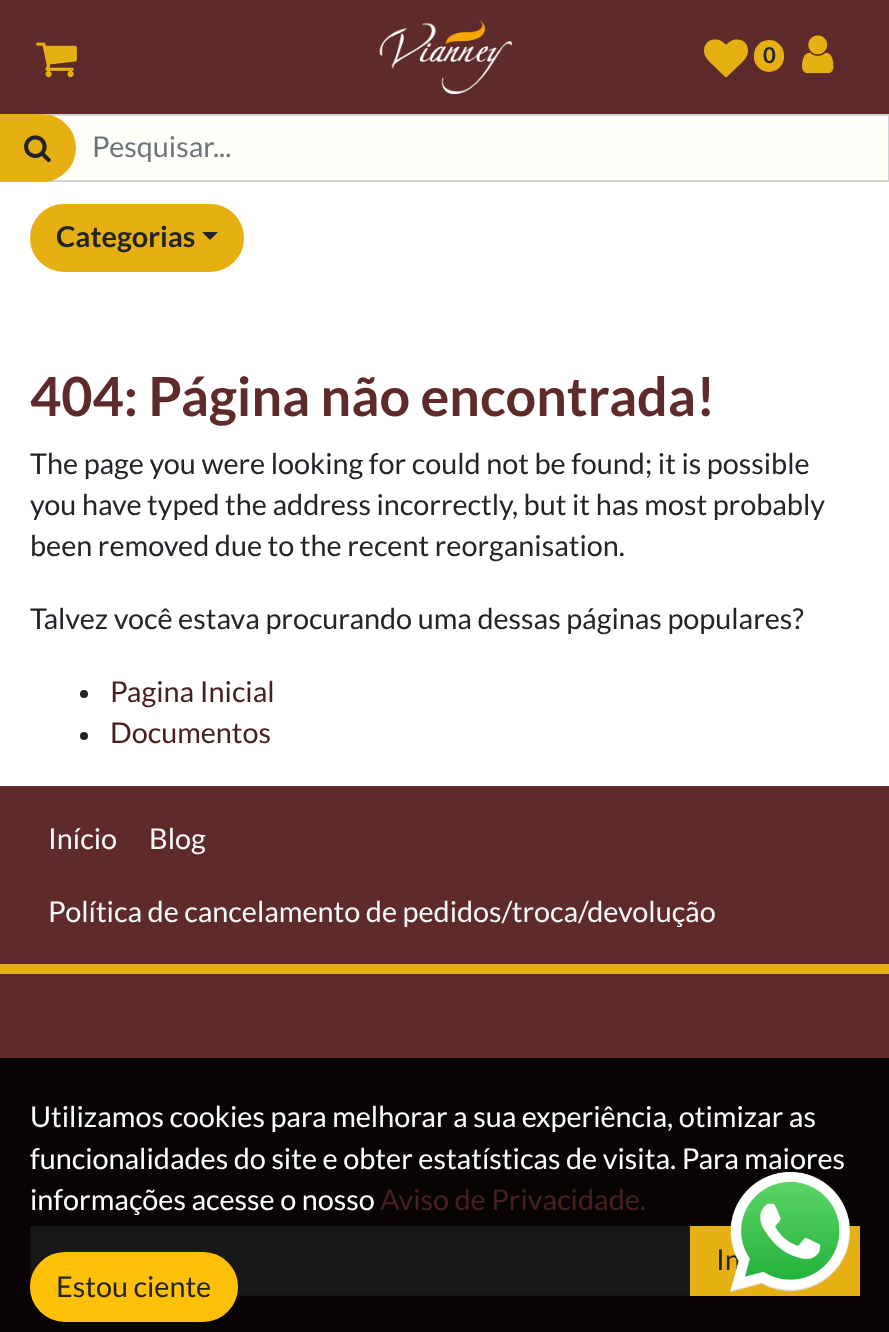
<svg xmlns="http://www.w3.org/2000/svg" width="889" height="1332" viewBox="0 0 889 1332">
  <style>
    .t1 { font: bold 22px Lato; fill: #212529; }
    .t2 { font: 28.8px Lato; fill: #6c757d; }
    .t3 { font: bold 28.8px Lato; fill: #212529; }
    .t4 { font: bold 53.9px Lato; fill: #5f2a2a; }
    .t5 { font: 28.8px Lato; fill: #212529; }
    .t6 { font: 28.8px Lato; fill: #482020; }
    .t7 { font: 28.8px Lato; fill: #f8f9fa; }
    .t8 { font: 28.8px Lato; fill: #fff; }
  </style>
  <rect width="100%" height="100%" fill="#fff"/>
  <rect x="0" y="0" width="889" height="114" fill="#5f2a2a"/>
  <image x="379" y="20" width="133" height="74" href="images/1.png"/>
  <image x="36" y="42" width="41" height="36" href="images/2.png"/>
  <image x="704" y="39" width="44" height="39" href="images/3.png"/>
  <rect x="754" y="40" width="30" height="32" rx="15" fill="#e7b012"/>
  <text x="763" y="63" class="t1">0</text>
  <image x="802" y="35" width="32" height="39" href="images/4.png"/>
  <rect x="53" y="116" width="835" height="64" fill="#fffef9"/>
  <rect x="1" y="115" width="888" height="66" fill="none" stroke="#ced4da" stroke-width="2"/>
  <path d="M-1 115H42C60 115 75 130 75 148C75 166 60 181 42 181H-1Z" fill="#e7b012" stroke="#e7b012" stroke-width="2"/>
  <image x="24" y="135" width="27" height="28" href="images/5.png"/>
  <text x="92" y="157" class="t2">Pesquisar...</text>
  <rect x="31" y="205" width="212" height="66" rx="33" fill="#e7b012" stroke="#e7b012" stroke-width="2"/>
  <text x="56" y="247" class="t3">Categorias</text>
  <path d="M202 232H218L210 240Z" fill="#212529"/>
  <text x="30" y="416" class="t4">404: Página não encontrada!</text>
  <text x="30" y="474" class="t5">The page you were looking for could not be found; it is possible</text>
  <text x="30" y="515" class="t5">you have typed the address incorrectly, but it has most probably</text>
  <text x="30" y="556" class="t5">been removed due to the recent reorganisation.</text>
  <text x="30" y="629" class="t5">Talvez você estava procurando uma dessas páginas populares?</text>
  <circle cx="84" cy="694" r="4" fill="#212529"/>
  <text x="110" y="702" class="t6">Pagina Inicial</text>
  <circle cx="84" cy="736" r="4" fill="#212529"/>
  <text x="110" y="743" class="t6">Documentos</text>
  <rect x="0" y="786" width="889" height="178" fill="#5f2a2a"/>
  <text x="48" y="849" class="t7">Início</text>
  <text x="149" y="849" class="t7">Blog</text>
  <text x="48" y="922" class="t7">Política de cancelamento de pedidos/troca/devolução</text>
  <rect x="0" y="974" width="889" height="358" fill="#5f2a2a"/>
  <rect x="31" y="1227" width="660" height="68" fill="#eee" stroke="#ced4da" stroke-width="2"/>
  <rect x="0" y="1058" width="889" height="274" fill="#000000e6"/>
  <text x="30" y="1127" class="t8">Utilizamos cookies para melhorar a sua experiência, otimizar as</text>
  <text x="30" y="1169" class="t8">funcionalidades do site e obter estatísticas de visita. Para maiores</text>
  <text x="30" y="1210" class="t8">informações acesse o nosso</text>
  <text x="380" y="1210" class="t6">Aviso de Privacidade.</text>
  <rect x="31" y="1253" width="206" height="68" rx="34" fill="#ffc107" stroke="#ffc107" stroke-width="2"/>
  <text x="56" y="1297" class="t5">Estou ciente</text>
  <rect x="0" y="964" width="889" height="10" fill="#e7b012"/>
  <rect x="690" y="1226" width="170" height="70" fill="#e7b012"/>
  <text x="716" y="1270" class="t5">In</text>
  <image x="730" y="1172" width="120" height="120" href="images/6.png"/>
</svg>
